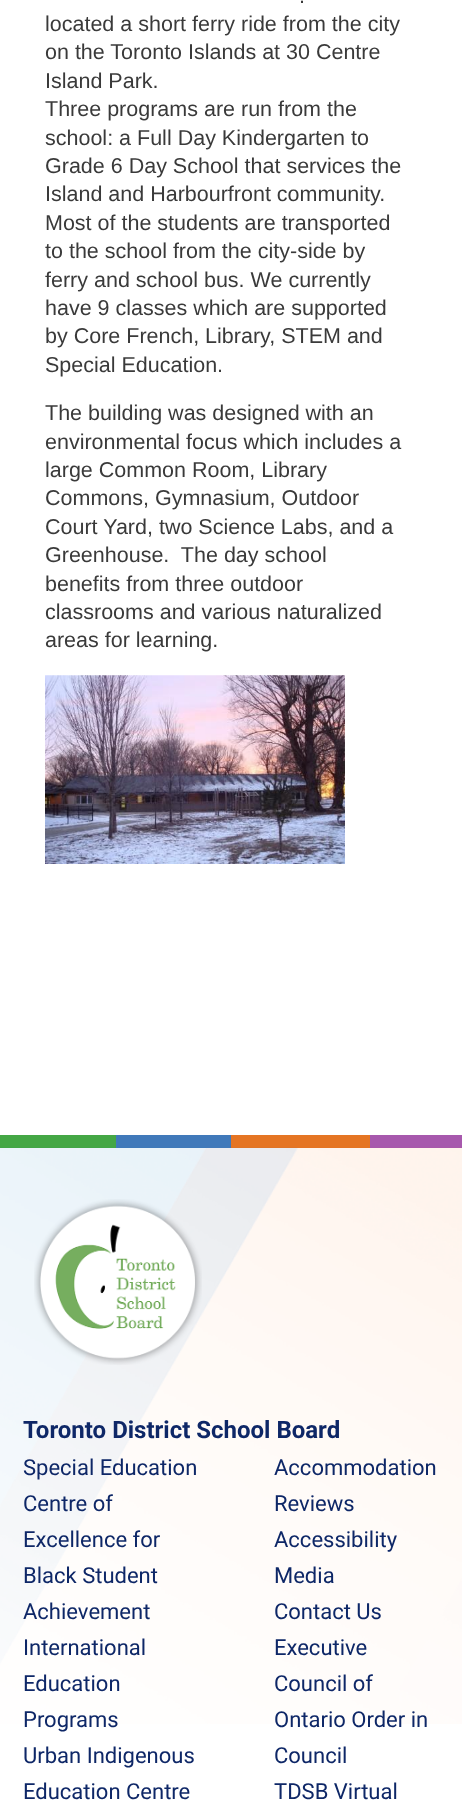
<svg xmlns="http://www.w3.org/2000/svg" width="462" height="1805" viewBox="0 0 462 1805">
  <style>
    .t1 { font: 21.5px Liberation Sans; fill: #3a3a3a; }
    .t2 { font: bold 24px Roboto; fill: #0e2767; }
    .t3 { font: 22px Roboto; fill: #0e2767; }
  </style>
  <rect width="100%" height="100%" fill="#fff"/>
  <text x="299" y="3" class="t1">.</text>
  <text x="45" y="31" class="t1">located a short ferry ride from the city</text>
  <text x="45" y="59" class="t1">on the Toronto Islands at 30 Centre</text>
  <text x="45" y="88" class="t1">Island Park.</text>
  <text x="45" y="116" class="t1">Three programs are run from the</text>
  <text x="45" y="145" class="t1">school: a Full Day Kindergarten to</text>
  <text x="45" y="173" class="t1">Grade 6 Day School that services the</text>
  <text x="45" y="201" class="t1">Island and Harbourfront community.</text>
  <text x="45" y="230" class="t1">Most of the students are transported</text>
  <text x="45" y="258" class="t1">to the school from the city-side by</text>
  <text x="45" y="287" class="t1">ferry and school bus. We currently</text>
  <text x="45" y="315" class="t1">have 9 classes which are supported</text>
  <text x="45" y="343" class="t1">by Core French, Library, STEM and</text>
  <text x="45" y="372" class="t1">Special Education.</text>
  <text x="45" y="420" class="t1">The building was designed with an</text>
  <text x="45" y="449" class="t1">environmental focus which includes a</text>
  <text x="45" y="477" class="t1">large Common Room, Library</text>
  <text x="45" y="505" class="t1">Commons, Gymnasium, Outdoor</text>
  <text x="45" y="534" class="t1">Court Yard, two Science Labs, and a</text>
  <text x="45" y="562" class="t1" xml:space="preserve">Greenhouse.  The day school</text>
  <text x="45" y="591" class="t1">benefits from three outdoor</text>
  <text x="45" y="619" class="t1">classrooms and various naturalized</text>
  <text x="45" y="647" class="t1">areas for learning.</text>
  <image x="45" y="675" width="300" height="189" href="images/1.png"/>
  <rect x="0" y="1135" width="116" height="13" fill="#44a745"/>
  <rect x="116" y="1135" width="115" height="13" fill="#4079ba"/>
  <rect x="231" y="1135" width="139" height="13" fill="#e57523"/>
  <rect x="370" y="1135" width="92" height="13" fill="#a758ad"/>
  <image x="0" y="1147" width="462" height="577" href="images/2.png"/>
  <image x="34" y="1199" width="168" height="166" href="images/3.png"/>
  <text x="23" y="1438" class="t2">Toronto District School Board</text>
  <text x="23" y="1475" class="t3">Special Education</text>
  <text x="23" y="1511" class="t3">Centre of</text>
  <text x="23" y="1547" class="t3">Excellence for</text>
  <text x="23" y="1583" class="t3">Black Student</text>
  <text x="23" y="1619" class="t3">Achievement</text>
  <text x="23" y="1655" class="t3">International</text>
  <text x="23" y="1691" class="t3">Education</text>
  <text x="23" y="1727" class="t3">Programs</text>
  <text x="23" y="1763" class="t3">Urban Indigenous</text>
  <text x="23" y="1799" class="t3">Education Centre</text>
  <text x="274" y="1475" class="t3">Accommodation</text>
  <text x="274" y="1511" class="t3">Reviews</text>
  <text x="274" y="1547" class="t3">Accessibility</text>
  <text x="274" y="1583" class="t3">Media</text>
  <text x="274" y="1619" class="t3">Contact Us</text>
  <text x="274" y="1655" class="t3">Executive</text>
  <text x="274" y="1691" class="t3">Council of</text>
  <text x="274" y="1727" class="t3">Ontario Order in</text>
  <text x="274" y="1763" class="t3">Council</text>
  <text x="274" y="1799" class="t3">TDSB Virtual</text>
</svg>
